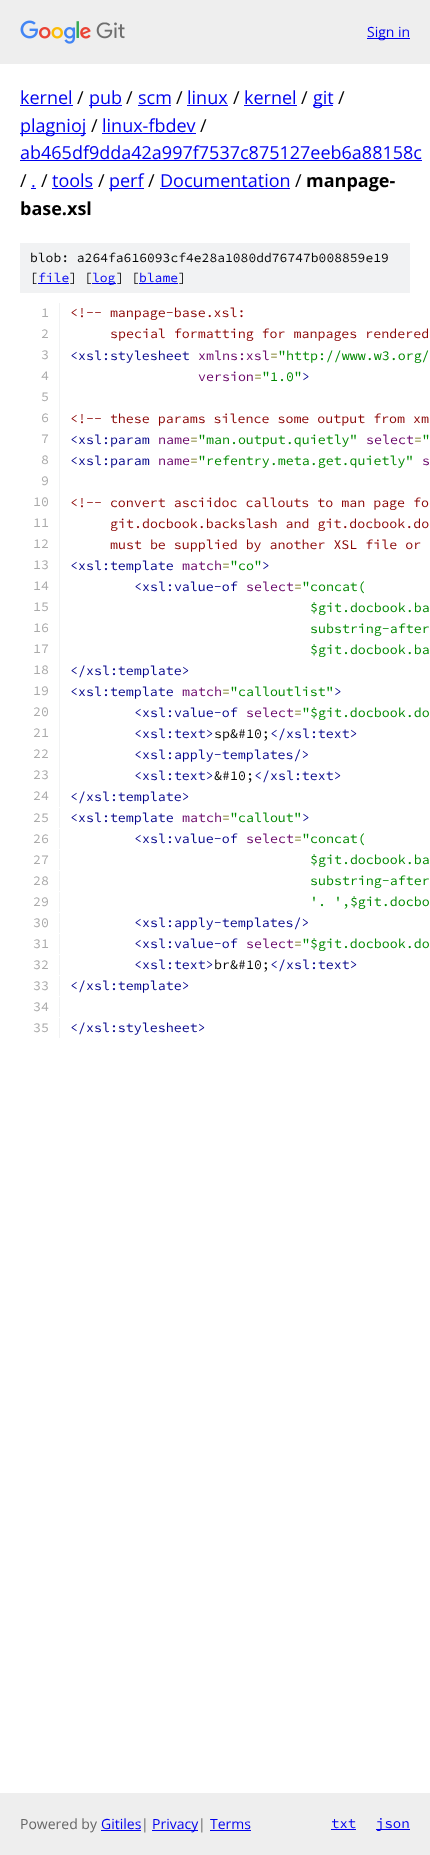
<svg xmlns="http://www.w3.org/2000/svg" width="430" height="1855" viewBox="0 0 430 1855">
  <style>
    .t1 { font: 14px Open Sans; fill: #00e; }
    .t2 { font: 18px Open Sans; fill: #00e; }
    .t3 { font: 18px Open Sans; fill: #000; }
    .t4 { font: bold 18px Open Sans; fill: #000; }
    .t5 { font: 200 13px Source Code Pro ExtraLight; fill: #000; }
    .t6 { font: 200 13px Source Code Pro ExtraLight; fill: #00e; }
    .t7 { font: 200 13.3px Source Code Pro ExtraLight; fill: #aaa; }
    .t8 { font: 200 13.3px Source Code Pro ExtraLight; fill: #800; }
    .t9 { font: 200 13.3px Source Code Pro ExtraLight; fill: #008; }
    .t10 { font: 200 13.3px Source Code Pro ExtraLight; fill: #606; }
    .t11 { font: 200 13.3px Source Code Pro ExtraLight; fill: #660; }
    .t12 { font: 200 13.3px Source Code Pro ExtraLight; fill: #080; }
    .t13 { font: 200 13.3px Source Code Pro ExtraLight; fill: #000; }
    .t14 { font: 14px Open Sans; fill: #666; }
    .t15 { font: 200 14px Source Code Pro ExtraLight; fill: #00e; }
  </style>
  <rect width="100%" height="100%" fill="#fff"/>
  <rect x="0" y="0" width="430" height="64" fill="#eee"/>
  <image x="20" y="20" width="105" height="24" href="images/1.png"/>
  <rect x="367" y="38" width="43" height="1" fill="#00e"/>
  <text x="367" y="37" class="t1">Sign in</text>
  <text x="20" y="104" class="t2">kernel</text>
  <rect x="20" y="105" width="53" height="1" fill="#00e"/>
  <text x="77" y="104" class="t3">/</text>
  <rect x="89" y="105" width="33" height="1" fill="#00e"/>
  <text x="89" y="104" class="t2">pub</text>
  <text x="126" y="104" class="t3">/</text>
  <text x="138" y="104" class="t2">scm</text>
  <rect x="138" y="105" width="33" height="1" fill="#00e"/>
  <text x="176" y="104" class="t3">/</text>
  <text x="187" y="104" class="t2">linux</text>
  <rect x="187" y="105" width="41" height="1" fill="#00e"/>
  <text x="233" y="104" class="t3">/</text>
  <text x="244" y="104" class="t2">kernel</text>
  <rect x="244" y="105" width="53" height="1" fill="#00e"/>
  <text x="301" y="104" class="t3">/</text>
  <rect x="313" y="105" width="20" height="1" fill="#00e"/>
  <text x="313" y="104" class="t2">git</text>
  <text x="338" y="104" class="t3">/</text>
  <rect x="20" y="133" width="66" height="1" fill="#00e"/>
  <text x="20" y="132" class="t2">plagnioj</text>
  <text x="91" y="132" class="t3">/</text>
  <text x="102" y="132" class="t2">linux-fbdev</text>
  <rect x="102" y="133" width="94" height="1" fill="#00e"/>
  <text x="200" y="132" class="t3">/</text>
  <text x="20" y="159" class="t2">ab465df9dda42a997f7537c875127eeb6a88158c</text>
  <rect x="20" y="160" width="402" height="1" fill="#00e"/>
  <text x="20" y="187" class="t3">/</text>
  <text x="31" y="187" class="t2">.</text>
  <rect x="31" y="188" width="5" height="1" fill="#00e"/>
  <text x="41" y="187" class="t3">/</text>
  <text x="52" y="187" class="t2">tools</text>
  <rect x="52" y="188" width="41" height="1" fill="#00e"/>
  <text x="98" y="187" class="t3">/</text>
  <rect x="109" y="188" width="35" height="1" fill="#00e"/>
  <text x="109" y="187" class="t2">perf</text>
  <text x="148" y="187" class="t3">/</text>
  <text x="160" y="187" class="t2">Documentation</text>
  <rect x="160" y="188" width="130" height="1" fill="#00e"/>
  <text x="295" y="187" class="t3">/</text>
  <text x="306" y="187" class="t4">manpage-</text>
  <text x="20" y="215" class="t4">base.xsl</text>
  <rect x="20" y="243" width="390" height="50" fill="#f1f2f3"/>
  <text x="30" y="262" class="t5">blob: a264fa616093cf4e28a1080dd76747b008859e19</text>
  <text x="30" y="282" class="t5">[</text>
  <text x="38" y="282" class="t6">file</text>
  <rect x="38" y="283" width="31" height="1" fill="#00e"/>
  <text x="69" y="282" class="t5">] [</text>
  <rect x="92" y="283" width="24" height="1" fill="#00e"/>
  <text x="92" y="282" class="t6">log</text>
  <text x="116" y="282" class="t5">] [</text>
  <text x="139" y="282" class="t6">blame</text>
  <rect x="139" y="283" width="39" height="1" fill="#00e"/>
  <text x="178" y="282" class="t5">]</text>
  <rect x="59" y="303" width="1" height="504" fill="#f1f2f3"/>
  <text x="41" y="317" class="t7">1</text>
  <text x="70" y="317" class="t8">&lt;!-- manpage-base.xsl:</text>
  <text x="41" y="338" class="t7">2</text>
  <text x="110" y="338" class="t8">special formatting for manpages rendered</text>
  <text x="41" y="359" class="t7">3</text>
  <text x="70" y="360" class="t9">&lt;xsl:stylesheet</text>
  <text x="198" y="360" class="t10">xmlns:xsl</text>
  <text x="270" y="360" class="t11">=</text>
  <text x="278" y="360" class="t12">"http://www.w3.org/</text>
  <text x="41" y="380" class="t7">4</text>
  <text x="198" y="381" class="t10">version</text>
  <text x="254" y="381" class="t11">=</text>
  <text x="262" y="381" class="t12">"1.0"</text>
  <text x="302" y="381" class="t9">&gt;</text>
  <text x="41" y="401" class="t7">5</text>
  <text x="41" y="422" class="t7">6</text>
  <text x="70" y="423" class="t8">&lt;!-- these params silence some output from xm</text>
  <text x="41" y="443" class="t7">7</text>
  <text x="70" y="444" class="t9">&lt;xsl:param</text>
  <text x="158" y="444" class="t10">name</text>
  <text x="190" y="444" class="t11">=</text>
  <text x="198" y="444" class="t12">"man.output.quietly"</text>
  <text x="366" y="444" class="t10">select</text>
  <text x="414" y="444" class="t11">=</text>
  <text x="422" y="444" class="t12">"</text>
  <text x="41" y="464" class="t7">8</text>
  <text x="70" y="465" class="t9">&lt;xsl:param</text>
  <text x="158" y="465" class="t10">name</text>
  <text x="190" y="465" class="t11">=</text>
  <text x="198" y="465" class="t12">"refentry.meta.get.quietly"</text>
  <text x="422" y="465" class="t10">s</text>
  <text x="41" y="485" class="t7">9</text>
  <text x="33" y="506" class="t7">10</text>
  <text x="70" y="507" class="t8">&lt;!-- convert asciidoc callouts to man page fo</text>
  <text x="33" y="527" class="t7">11</text>
  <text x="110" y="528" class="t8">git.docbook.backslash and git.docbook.do</text>
  <text x="33" y="548" class="t7">12</text>
  <text x="110" y="549" class="t8">must be supplied by another XSL file or</text>
  <text x="33" y="569" class="t7">13</text>
  <text x="70" y="570" class="t9">&lt;xsl:template</text>
  <text x="182" y="570" class="t10">match</text>
  <text x="222" y="570" class="t11">=</text>
  <text x="230" y="570" class="t12">"co"</text>
  <text x="262" y="570" class="t9">&gt;</text>
  <text x="33" y="590" class="t7">14</text>
  <text x="134" y="591" class="t9">&lt;xsl:value-of</text>
  <text x="246" y="591" class="t10">select</text>
  <text x="294" y="591" class="t11">=</text>
  <text x="302" y="591" class="t12">"concat(</text>
  <text x="33" y="611" class="t7">15</text>
  <text x="310" y="612" class="t12">$git.docbook.ba</text>
  <text x="33" y="632" class="t7">16</text>
  <text x="310" y="633" class="t12">substring-after</text>
  <text x="33" y="653" class="t7">17</text>
  <text x="310" y="654" class="t12">$git.docbook.ba</text>
  <text x="33" y="674" class="t7">18</text>
  <text x="70" y="675" class="t9">&lt;/xsl:template&gt;</text>
  <text x="33" y="695" class="t7">19</text>
  <text x="70" y="696" class="t9">&lt;xsl:template</text>
  <text x="182" y="696" class="t10">match</text>
  <text x="222" y="696" class="t11">=</text>
  <text x="230" y="696" class="t12">"calloutlist"</text>
  <text x="334" y="696" class="t9">&gt;</text>
  <text x="33" y="716" class="t7">20</text>
  <text x="134" y="717" class="t9">&lt;xsl:value-of</text>
  <text x="246" y="717" class="t10">select</text>
  <text x="294" y="717" class="t11">=</text>
  <text x="302" y="717" class="t12">"$git.docbook.do</text>
  <text x="33" y="737" class="t7">21</text>
  <text x="134" y="738" class="t9">&lt;xsl:text&gt;</text>
  <text x="214" y="738" class="t13">sp&amp;#10;</text>
  <text x="270" y="738" class="t9">&lt;/xsl:text&gt;</text>
  <text x="33" y="758" class="t7">22</text>
  <text x="134" y="759" class="t9">&lt;xsl:apply-templates/&gt;</text>
  <text x="33" y="779" class="t7">23</text>
  <text x="134" y="780" class="t9">&lt;xsl:text&gt;</text>
  <text x="214" y="780" class="t13">&amp;#10;</text>
  <text x="254" y="780" class="t9">&lt;/xsl:text&gt;</text>
  <text x="33" y="800" class="t7">24</text>
  <text x="70" y="801" class="t9">&lt;/xsl:template&gt;</text>
  <rect x="59" y="808" width="1" height="20" fill="#f1f2f3"/>
  <text x="33" y="822" class="t7">25</text>
  <text x="70" y="822" class="t9">&lt;xsl:template</text>
  <text x="182" y="822" class="t10">match</text>
  <text x="222" y="822" class="t11">=</text>
  <text x="230" y="822" class="t12">"callout"</text>
  <text x="302" y="822" class="t9">&gt;</text>
  <rect x="59" y="829" width="1" height="20" fill="#f1f2f3"/>
  <text x="33" y="843" class="t7">26</text>
  <text x="134" y="843" class="t9">&lt;xsl:value-of</text>
  <text x="246" y="843" class="t10">select</text>
  <text x="294" y="843" class="t11">=</text>
  <text x="302" y="843" class="t12">"concat(</text>
  <rect x="59" y="850" width="1" height="20" fill="#f1f2f3"/>
  <text x="33" y="864" class="t7">27</text>
  <text x="310" y="864" class="t12">$git.docbook.ba</text>
  <rect x="59" y="871" width="1" height="20" fill="#f1f2f3"/>
  <text x="33" y="885" class="t7">28</text>
  <text x="310" y="885" class="t12">substring-after</text>
  <rect x="59" y="892" width="1" height="20" fill="#f1f2f3"/>
  <text x="33" y="906" class="t7">29</text>
  <text x="310" y="906" class="t12">'. ',$git.docbo</text>
  <rect x="59" y="913" width="1" height="20" fill="#f1f2f3"/>
  <text x="33" y="927" class="t7">30</text>
  <text x="134" y="927" class="t9">&lt;xsl:apply-templates/&gt;</text>
  <rect x="59" y="934" width="1" height="20" fill="#f1f2f3"/>
  <text x="33" y="948" class="t7">31</text>
  <text x="134" y="948" class="t9">&lt;xsl:value-of</text>
  <text x="246" y="948" class="t10">select</text>
  <text x="294" y="948" class="t11">=</text>
  <text x="302" y="948" class="t12">"$git.docbook.do</text>
  <rect x="59" y="955" width="1" height="20" fill="#f1f2f3"/>
  <text x="33" y="969" class="t7">32</text>
  <text x="134" y="969" class="t9">&lt;xsl:text&gt;</text>
  <text x="214" y="969" class="t13">br&amp;#10;</text>
  <text x="270" y="969" class="t9">&lt;/xsl:text&gt;</text>
  <rect x="59" y="976" width="1" height="20" fill="#f1f2f3"/>
  <text x="33" y="990" class="t7">33</text>
  <text x="70" y="990" class="t9">&lt;/xsl:template&gt;</text>
  <rect x="59" y="997" width="1" height="20" fill="#f1f2f3"/>
  <text x="33" y="1011" class="t7">34</text>
  <rect x="59" y="1018" width="1" height="20" fill="#f1f2f3"/>
  <text x="33" y="1032" class="t7">35</text>
  <text x="70" y="1032" class="t9">&lt;/xsl:stylesheet&gt;</text>
  <rect x="0" y="1793" width="430" height="62" fill="#eee"/>
  <text x="20" y="1829" class="t14">Powered by</text>
  <text x="101" y="1829" class="t1">Gitiles</text>
  <rect x="101" y="1830" width="40" height="1" fill="#00e"/>
  <text x="141" y="1829" class="t14">|</text>
  <rect x="152" y="1830" width="46" height="1" fill="#00e"/>
  <text x="152" y="1829" class="t1">Privacy</text>
  <text x="198" y="1829" class="t14">|</text>
  <text x="210" y="1829" class="t1">Terms</text>
  <rect x="210" y="1830" width="41" height="1" fill="#00e"/>
  <text x="331" y="1828" class="t15">txt</text>
  <rect x="331" y="1829" width="25" height="1" fill="#00e"/>
  <rect x="376" y="1829" width="34" height="1" fill="#00e"/>
  <text x="376" y="1828" class="t15">json</text>
</svg>
